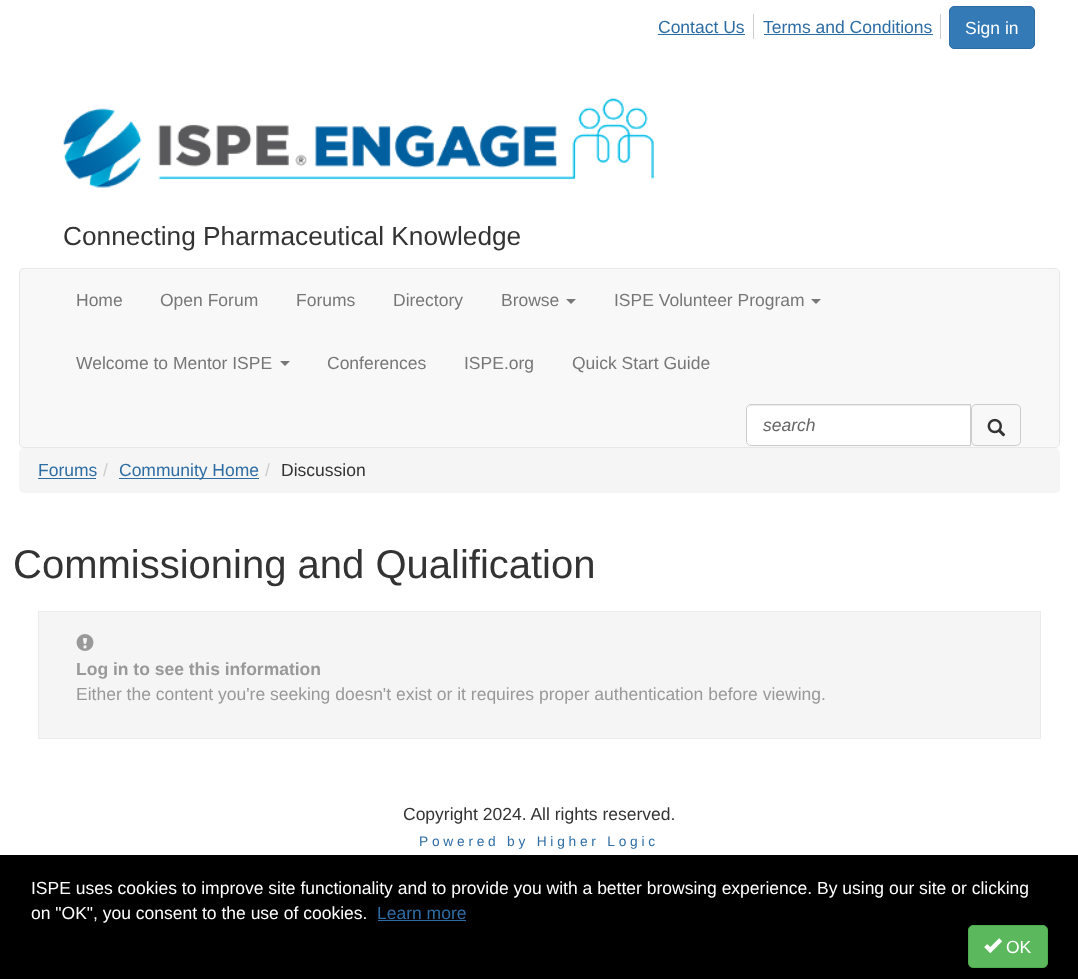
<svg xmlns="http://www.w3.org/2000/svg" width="1078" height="979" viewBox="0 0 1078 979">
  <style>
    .t1 { font: 17.5px Liberation Sans; fill: #2e6da4; }
    .t2 { font: 17.5px Liberation Sans; fill: #fff; }
    .t3 { font: 26.25px Liberation Sans; fill: #333; }
    .t4 { font: 17.5px Liberation Sans; fill: #777; }
    .t5 { font: italic 17.5px Liberation Sans; fill: #666; }
    .t6 { font: 17.5px Liberation Sans; fill: #ccc; }
    .t7 { font: 17.5px Liberation Sans; fill: #333; }
    .t8 { font: 40px Liberation Sans; fill: #333; }
    .t9 { font: bold 17.5px Liberation Sans; fill: #999; }
    .t10 { font: 17.5px Liberation Sans; fill: #999; }
    .t11 { font: 13.75px Liberation Sans; letter-spacing: 3.75px; fill: #2e6da4; }
  </style>
  <rect width="100%" height="100%" fill="#fff"/>
  <rect x="753" y="14" width="1" height="25" fill="#ccc"/>
  <text x="658" y="33" class="t1">Contact Us</text>
  <rect x="658" y="34" width="87" height="1" fill="#2e6da4"/>
  <rect x="940" y="14" width="1" height="25" fill="#ccc"/>
  <text x="763" y="33" class="t1">Terms and Conditions</text>
  <rect x="764" y="34" width="169" height="1" fill="#2e6da4"/>
  <rect x="949.5" y="6.5" width="85" height="42" rx="4.5" fill="#337ab7" stroke="#2e6da4"/>
  <text x="965" y="34" class="t2">Sign in</text>
  <image x="63" y="98" width="591" height="90" href="images/1.png"/>
  <text x="63" y="245" class="t3">Connecting Pharmaceutical Knowledge</text>
  <rect x="19.5" y="268.5" width="1040" height="179" rx="4.5" fill="#f8f8f8" stroke="#e7e7e7"/>
  <text x="76" y="306" class="t4">Home</text>
  <text x="160" y="306" class="t4">Open Forum</text>
  <text x="296" y="306" class="t4">Forums</text>
  <text x="393" y="306" class="t4">Directory</text>
  <text x="501" y="306" class="t4">Browse</text>
  <path d="M566 299H576L571 304Z" fill="#777"/>
  <text x="614" y="306" class="t4">ISPE Volunteer Program</text>
  <path d="M811 299H821L816 304Z" fill="#777"/>
  <text x="76" y="369" class="t4">Welcome to Mentor ISPE</text>
  <path d="M280 361H290L285 366Z" fill="#777"/>
  <text x="327" y="369" class="t4">Conferences</text>
  <text x="464" y="369" class="t4">ISPE.org</text>
  <text x="572" y="369" class="t4">Quick Start Guide</text>
  <path d="M751 404H971V446H751C748 446 746 444 746 441V409C746 406 748 404 751 404Z" fill="#fff"/>
  <path d="M751 406H970V405H752C749 405 748 407 748 410C748 408 749 406 751 406Z" fill="#ececec"/>
  <path d="M751 404.5H970.5V445.5H751C748.5 445.5 746.5 443.5 746.5 441V409C746.5 406.5 748.5 404.5 751 404.5Z" fill="none" stroke="#ccc"/>
  <text x="763" y="431" class="t5">search</text>
  <rect x="971.5" y="404.5" width="49" height="41" rx="4.5" fill="none" stroke="#ccc"/>
  <image x="987" y="418" width="19" height="19" href="images/2.png"/>
  <rect x="19" y="448" width="1041" height="45" rx="5" fill="#f5f5f5"/>
  <text x="38" y="476" class="t1">Forums</text>
  <rect x="38" y="478" width="58" height="1" fill="#2e6da4"/>
  <text x="103" y="476" class="t6">/</text>
  <rect x="119" y="478" width="140" height="1" fill="#2e6da4"/>
  <text x="119" y="476" class="t1">Community Home</text>
  <text x="265" y="476" class="t6">/</text>
  <text x="281" y="476" class="t7">Discussion</text>
  <text x="13" y="578" class="t8">Commissioning and Qualification</text>
  <rect x="38.5" y="611.5" width="1002" height="127" fill="#f5f5f5" stroke="#ebebeb"/>
  <image x="76" y="634" width="18" height="17" href="images/3.png"/>
  <text x="76" y="675" class="t9">Log in to see this information</text>
  <text x="76" y="700" class="t10">Either the content you're seeking doesn't exist or it requires proper authentication before viewing.</text>
  <text x="403" y="820" class="t7">Copyright 2024. All rights reserved.</text>
  <text x="419" y="846" class="t11">Powered by Higher Logic</text>
  <rect x="0" y="855" width="1078" height="124" fill="#000"/>
  <text x="31" y="894" class="t2">ISPE uses cookies to improve site functionality and to provide you with a better browsing experience. By using our site or clicking</text>
  <text x="31" y="919" class="t2">on "OK", you consent to the use of cookies.</text>
  <text x="377" y="919" class="t1">Learn more</text>
  <rect x="378" y="920" width="88" height="1" fill="#2e6da4"/>
  <rect x="968.5" y="925.5" width="79" height="42" rx="4.5" fill="#5cb85c" stroke="#4cae4c"/>
  <image x="984" y="938" width="18" height="15" href="images/4.png"/>
  <text x="1006" y="953" class="t2">OK</text>
</svg>
